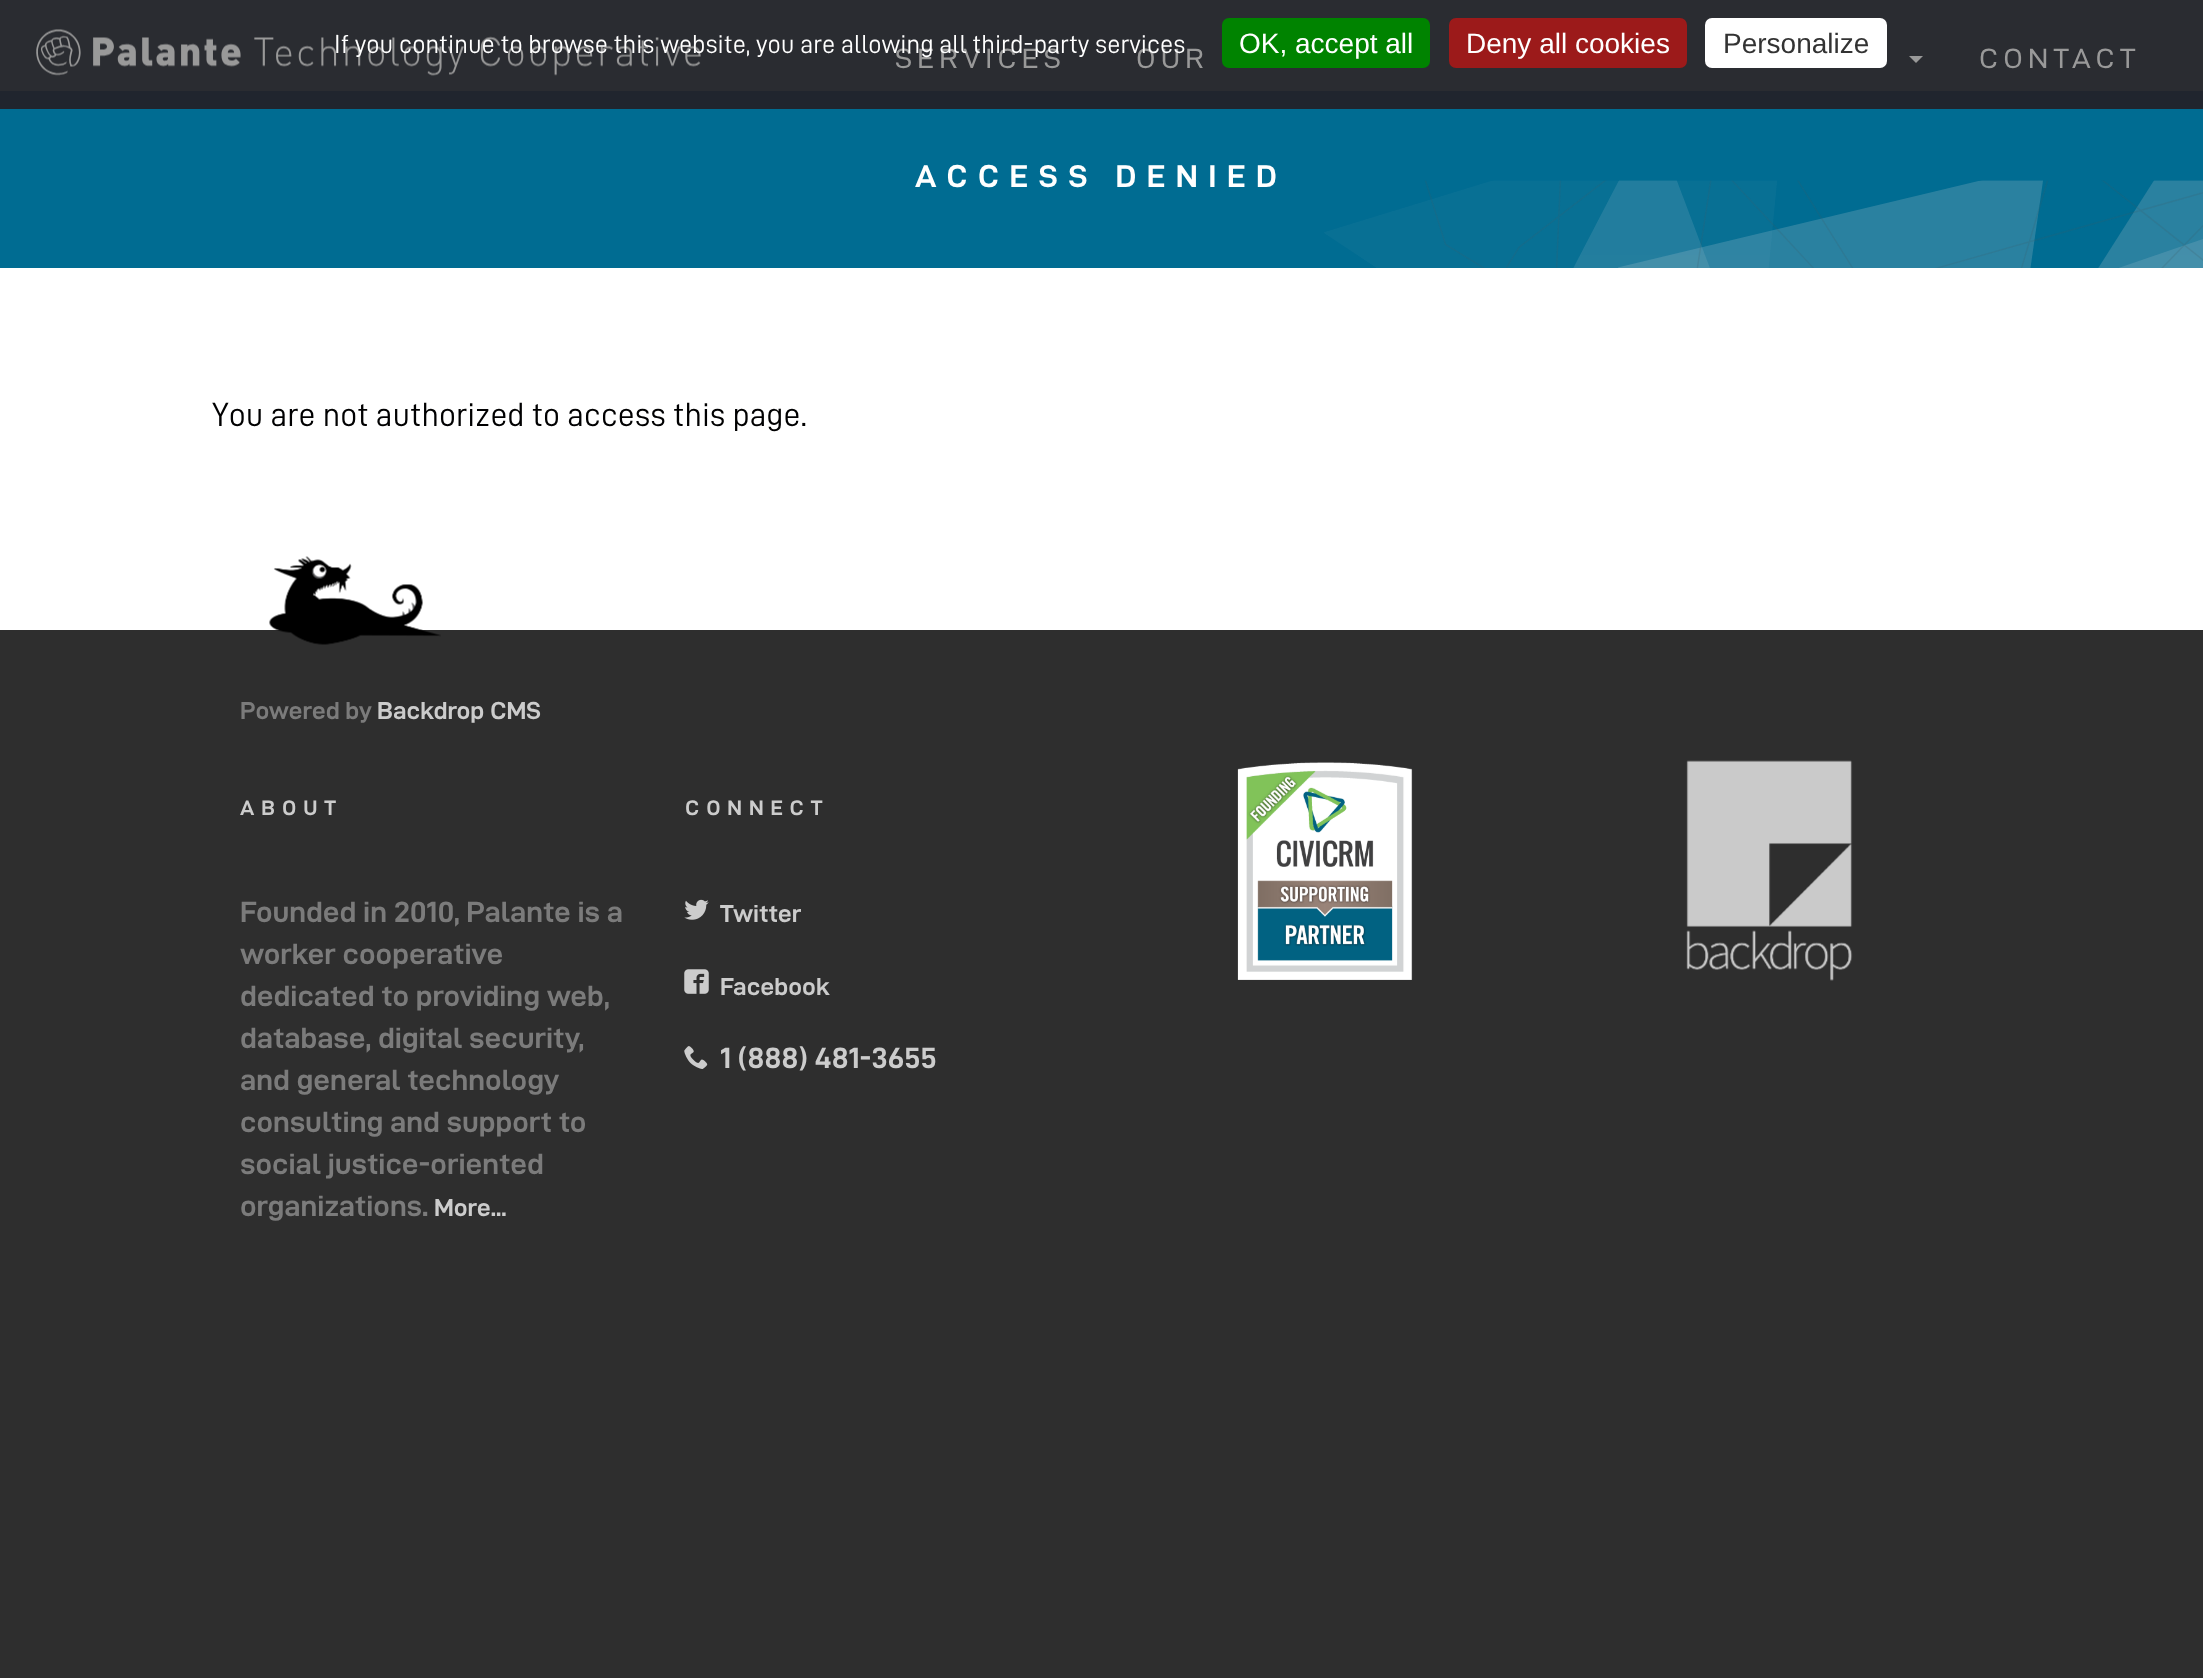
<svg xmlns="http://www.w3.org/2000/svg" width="2203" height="1678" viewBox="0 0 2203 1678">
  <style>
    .t1 { font: 28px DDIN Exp; letter-spacing: 5.25px; fill: #999; }
    .t2 { font: 26.25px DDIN; fill: #fff; }
    .t3 { font: 28px Liberation Sans; fill: #fff; }
    .t4 { font: 28px Liberation Sans; fill: #333; }
    .t5 { font: bold 31.5px DDIN Exp; letter-spacing: 10.5px; fill: #fff; }
    .t6 { font: 33.6px DDIN; fill: #000001; }
    .t7 { font: bold 24.5px DDIN Exp; fill: #7b7b7b; }
    .t8 { font: bold 24.5px DDIN Exp; fill: #ccc; }
    .t9 { font: bold 21px DDIN Exp; letter-spacing: 7px; fill: #ccc; }
    .t10 { font: bold 29.4px DDIN Exp; fill: #7b7b7b; }
    .t11 { font: bold 29.4px DDIN Exp; fill: #ccc; }
  </style>
  <rect width="100%" height="100%" fill="#fff"/>
  <rect x="0" y="0" width="2203" height="91" fill="#2a2c31"/>
  <image x="36" y="29" width="665" height="47" href="images/1.png"/>
  <text x="895" y="68" class="t1">SERVICES</text>
  <text x="1136" y="68" class="t1">OUR</text>
  <text x="334" y="53" class="t2">If you continue to browse this website, you are allowing all third-party services</text>
  <rect x="1222" y="18" width="208" height="50" rx="7" fill="#008300"/>
  <text x="1239" y="53" class="t3">OK, accept all</text>
  <rect x="1449" y="18" width="238" height="50" rx="7" fill="#9c1a1a"/>
  <text x="1466" y="53" class="t3">Deny all cookies</text>
  <rect x="1705" y="18" width="182" height="50" rx="7" fill="#fff"/>
  <text x="1723" y="53" class="t4">Personalize</text>
  <rect x="0" y="91" width="2203" height="18" fill="#20252e"/>
  <path d="M1909 56H1923L1916 63Z" fill="#999"/>
  <text x="1979" y="68" class="t1">CONTACT</text>
  <rect x="0" y="109" width="2203" height="159" fill="#006c92"/>
  <image x="1324" y="180" width="879" height="88" href="images/2.png"/>
  <text x="915" y="187" class="t5">ACCESS DENIED</text>
  <text x="212" y="426" class="t6">You are not authorized to access this page.</text>
  <rect x="0" y="630" width="2203" height="1048" fill="#2e2e2e"/>
  <image x="269" y="556" width="172" height="89" href="images/3.png"/>
  <text x="240" y="719" class="t7">Powered by</text>
  <text x="377" y="719" class="t8">Backdrop CMS</text>
  <text x="240" y="815" class="t9">ABOUT</text>
  <text x="240" y="922" class="t10">Founded in 2010, Palante is a</text>
  <text x="240" y="964" class="t10">worker cooperative</text>
  <text x="240" y="1006" class="t10">dedicated to providing web,</text>
  <text x="240" y="1048" class="t10">database, digital security,</text>
  <text x="240" y="1090" class="t10">and general technology</text>
  <text x="240" y="1132" class="t10">consulting and support to</text>
  <text x="240" y="1174" class="t10">social justice-oriented</text>
  <text x="240" y="1216" class="t10">organizations.</text>
  <text x="434" y="1216" class="t8">More...</text>
  <text x="685" y="815" class="t9">CONNECT</text>
  <image x="684" y="899" width="25" height="21" href="images/4.png"/>
  <text x="720" y="922" class="t8">Twitter</text>
  <image x="684" y="969" width="25" height="25" href="images/5.png"/>
  <text x="720" y="995" class="t8">Facebook</text>
  <image x="684" y="1046" width="24" height="23" href="images/6.png"/>
  <text x="720" y="1068" class="t11">1 (888) 481-3655</text>
  <image x="1237" y="762" width="176" height="218" href="images/7.png"/>
  <image x="1686" y="760" width="167" height="221" href="images/8.png"/>
</svg>
